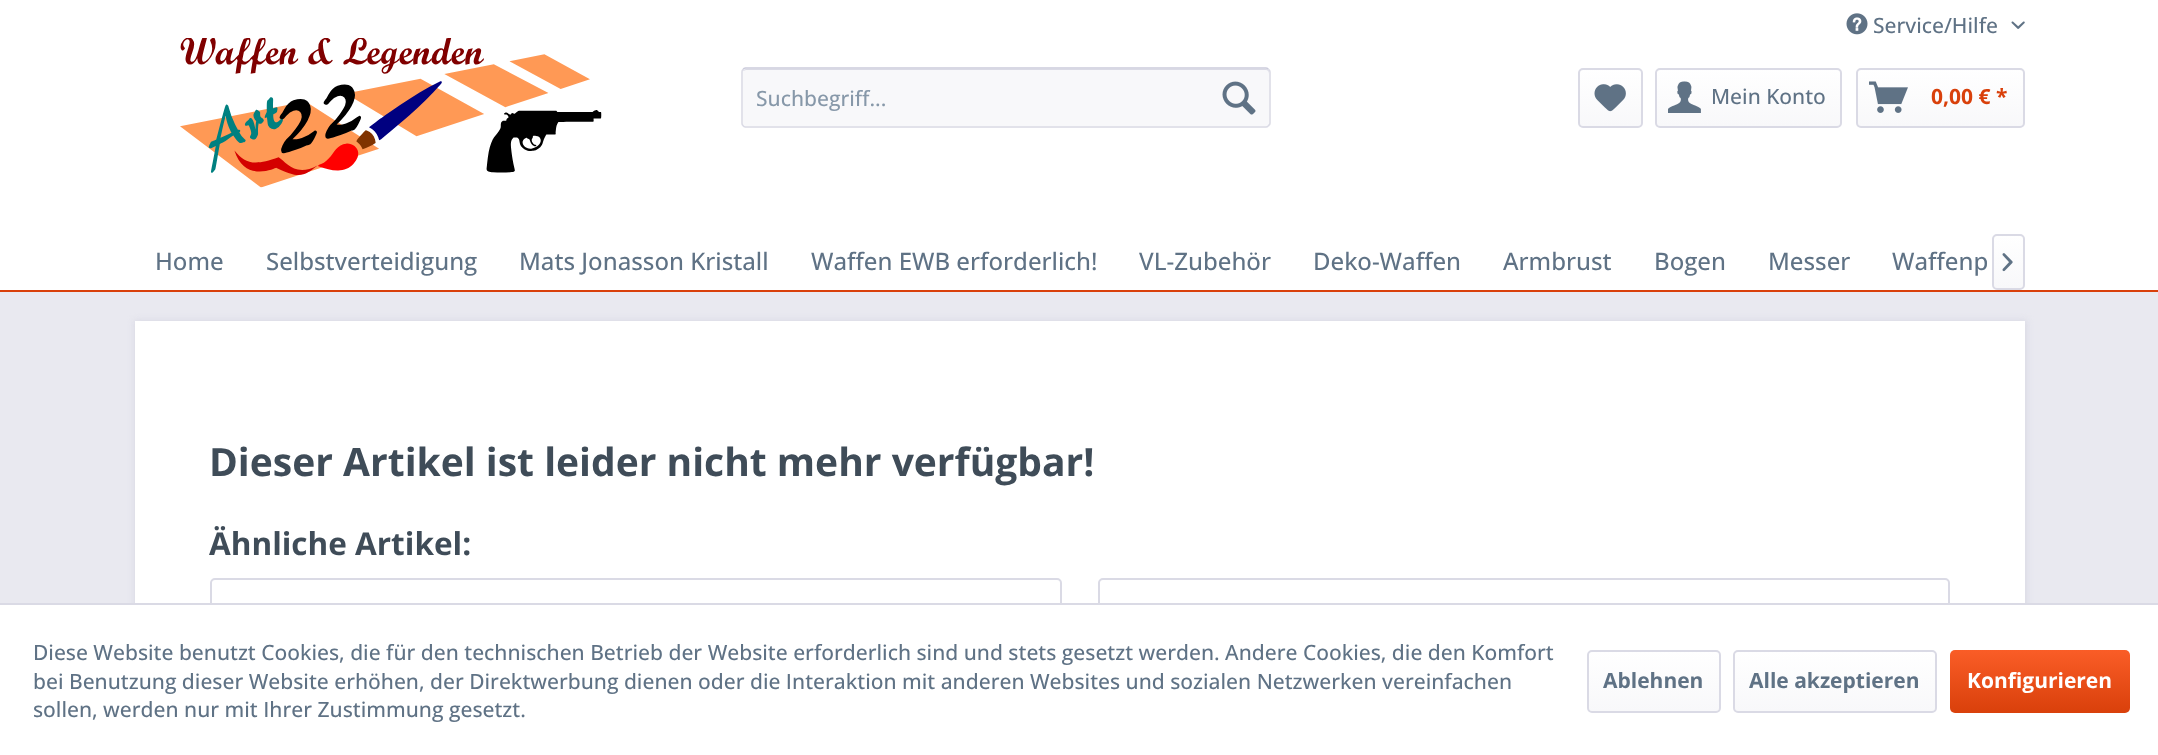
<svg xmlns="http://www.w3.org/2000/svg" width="2158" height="755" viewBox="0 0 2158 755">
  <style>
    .t1 { font: 500 21px Open Sans; fill: #5f7285; }
    .t2 { font: 500 21px Open Sans; fill: #8798a9; }
    .t3 { font: bold 21px Open Sans; fill: #d9400b; }
    .t4 { font: 500 24px Open Sans; fill: #5f7285; }
    .t5 { font: bold 39px Open Sans; fill: #3f4c58; }
    .t6 { font: bold 31.5px Open Sans; fill: #3f4c58; }
    .t7 { font: bold 21px Open Sans; fill: #5f7285; }
    .t8 { font: bold 21px Open Sans; fill: #fff; }
  </style>
  <defs>
    <linearGradient id="g1" gradientUnits="userSpaceOnUse" x1="1610" y1="69" x2="1610" y2="126"><stop offset="0" stop-color="#fff"/><stop offset="1" stop-color="#f8f8fa"/></linearGradient>
    <linearGradient id="g2" gradientUnits="userSpaceOnUse" x1="1748" y1="69" x2="1748" y2="126"><stop offset="0" stop-color="#fff"/><stop offset="1" stop-color="#f8f8fa"/></linearGradient>
    <linearGradient id="g3" gradientUnits="userSpaceOnUse" x1="1940" y1="69" x2="1940" y2="126"><stop offset="0" stop-color="#fff"/><stop offset="1" stop-color="#f8f8fa"/></linearGradient>
    <linearGradient id="g4" gradientUnits="userSpaceOnUse" x1="2009" y1="236" x2="2009" y2="288"><stop offset="0" stop-color="#fff"/><stop offset="1" stop-color="#f8f8fa"/></linearGradient>
    <linearGradient id="g5" gradientUnits="userSpaceOnUse" x1="1654" y1="651" x2="1654" y2="711"><stop offset="0" stop-color="#fff"/><stop offset="1" stop-color="#f8f8fa"/></linearGradient>
    <linearGradient id="g6" gradientUnits="userSpaceOnUse" x1="1835" y1="651" x2="1835" y2="711"><stop offset="0" stop-color="#fff"/><stop offset="1" stop-color="#f8f8fa"/></linearGradient>
    <linearGradient id="g7" gradientUnits="userSpaceOnUse" x1="2040" y1="650" x2="2040" y2="713"><stop offset="0" stop-color="#fa5d27"/><stop offset="1" stop-color="#d9400b"/></linearGradient>
  </defs>
  <rect width="100%" height="100%" fill="#e9e9f0"/>
  <rect x="0" y="0" width="2158" height="290" fill="#fff"/>
  <image x="1846" y="13" width="22" height="22" href="images/1.png"/>
  <text x="1873" y="33" class="t1">Service/Hilfe</text>
  <image x="2011" y="21" width="14" height="8" href="images/2.png"/>
  <image x="180" y="38" width="422" height="150" href="images/3.png"/>
  <rect x="741" y="68" width="530" height="60" rx="5" fill="#f8f8fa"/>
  <path d="M746 70H1266C1268 70 1269 72 1269 74V72C1269 70 1268 69 1266 69H746C745 69 743 70 743 71Z" fill="#dadae5"/>
  <path d="M743 69.5C743.5 68.5 744.5 68 745.5 68H1266C1267 68 1268 68.5 1268.5 69.5" fill="none" stroke="#cbcbdb" stroke-width="1.5"/>
  <path d="M1268.5 69.5C1269.5 70 1270 71 1270 72V123C1270 124 1269.5 125 1268.5 125.5C1268 126.5 1267 127 1266 127H745.5C744.5 127 743.5 126.5 743 125.5C742 125 742 124 742 123V72C742 71 742 70 743 69.5" fill="none" stroke="#dadae5" stroke-width="1.5"/>
  <text x="756" y="106" class="t2">Suchbegriff...</text>
  <image x="1222" y="81" width="34" height="34" href="images/4.png"/>
  <rect x="1580" y="69" width="61" height="57" rx="3" fill="url(#g1)"/>
  <rect x="1579" y="69" width="63" height="58" rx="4" fill="none" stroke="#dadae5" stroke-width="2"/>
  <image x="1594" y="84" width="32" height="28" href="images/5.png"/>
  <rect x="1656" y="69" width="185" height="57" rx="3" fill="url(#g2)"/>
  <rect x="1656" y="69" width="185" height="58" rx="4" fill="none" stroke="#dadae5" stroke-width="2"/>
  <image x="1668" y="81" width="33" height="32" href="images/6.png"/>
  <text x="1711" y="104" class="t1">Mein Konto</text>
  <rect x="1857" y="69" width="167" height="57" rx="3" fill="url(#g3)"/>
  <rect x="1857" y="69" width="167" height="58" rx="4" fill="none" stroke="#dadae5" stroke-width="2"/>
  <image x="1869" y="81" width="39" height="32" href="images/7.png"/>
  <text x="1931" y="104" class="t3">0,00 € *</text>
  <rect x="0" y="290" width="2158" height="2" fill="#d9400b"/>
  <text x="155" y="270" class="t4">Home</text>
  <text x="266" y="270" class="t4">Selbstverteidigung</text>
  <text x="519" y="270" class="t4">Mats Jonasson Kristall</text>
  <text x="811" y="270" class="t4">Waffen EWB erforderlich!</text>
  <text x="1139" y="270" class="t4">VL-Zubehör</text>
  <text x="1313" y="270" class="t4">Deko-Waffen</text>
  <text x="1503" y="270" class="t4">Armbrust</text>
  <text x="1654" y="270" class="t4">Bogen</text>
  <text x="1768" y="270" class="t4">Messer</text>
  <text x="1892" y="270" class="t4">Waffenp</text>
  <rect x="1994" y="236" width="30" height="52" rx="3" fill="url(#g4)"/>
  <rect x="1993" y="235" width="31" height="54" rx="4" fill="none" stroke="#dadae5" stroke-width="2"/>
  <image x="2002" y="253" width="11" height="19" href="images/8.png"/>
  <rect x="134" y="320" width="1893" height="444" fill="#dadae5" filter="blur(3px)"/>
  <rect x="135" y="321" width="1890" height="282" fill="#fff"/>
  <text x="209" y="476" class="t5">Dieser Artikel ist leider nicht mehr verfügbar!</text>
  <text x="209" y="555" class="t6">Ähnliche Artikel:</text>
  <rect x="211" y="579" width="850" height="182" rx="4" fill="none" stroke="#dadae5" stroke-width="2"/>
  <rect x="1099" y="579" width="850" height="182" rx="4" fill="none" stroke="#dadae5" stroke-width="2"/>
  <rect x="0" y="605" width="2158" height="150" fill="#fff"/>
  <rect x="0" y="603" width="2158" height="2" fill="#dadae5"/>
  <text x="33" y="660" class="t1">Diese Website benutzt Cookies, die für den technischen Betrieb der Website erforderlich sind und stets gesetzt werden. Andere Cookies, die den Komfort</text>
  <text x="33" y="689" class="t1">bei Benutzung dieser Website erhöhen, der Direktwerbung dienen oder die Interaktion mit anderen Websites und sozialen Netzwerken vereinfachen</text>
  <text x="33" y="717" class="t1">sollen, werden nur mit Ihrer Zustimmung gesetzt.</text>
  <rect x="1589" y="651" width="130" height="60" rx="3" fill="url(#g5)"/>
  <rect x="1588" y="651" width="132" height="61" rx="4" fill="none" stroke="#dadae5" stroke-width="2"/>
  <text x="1603" y="688" class="t7">Ablehnen</text>
  <rect x="1734" y="651" width="201" height="60" rx="3" fill="url(#g6)"/>
  <rect x="1734" y="651" width="202" height="61" rx="4" fill="none" stroke="#dadae5" stroke-width="2"/>
  <text x="1749" y="688" class="t7">Alle akzeptieren</text>
  <rect x="1950" y="650" width="180" height="63" rx="5" fill="url(#g7)"/>
  <text x="1967" y="688" class="t8">Konfigurieren</text>
</svg>
